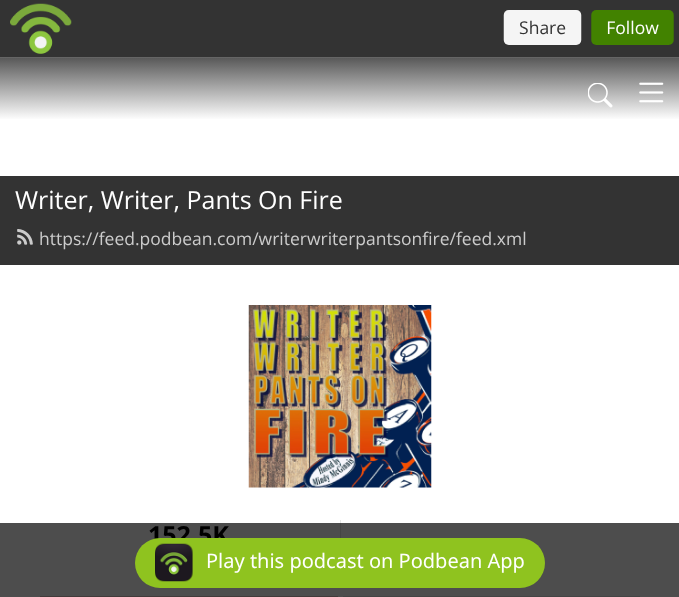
<svg xmlns="http://www.w3.org/2000/svg" width="679" height="597" viewBox="0 0 679 597">
  <style>
    .t1 { font: 25px Open Sans; fill: #fff; }
    .t2 { font: 17.5px Open Sans; fill: #ccc; }
    .t3 { font: bold 25px Open Sans; fill: #000; }
    .t4 { font: 20px Noto Sans; fill: #fff; }
  </style>
  <defs>
    <linearGradient id="g1" gradientUnits="userSpaceOnUse" x1="340" y1="120" x2="340" y2="58"><stop offset="0" stop-color="#fff"/><stop offset="1" stop-color="#595959"/></linearGradient>
  </defs>
  <rect width="100%" height="100%" fill="#fff"/>
  <rect x="0" y="523" width="679" height="74" fill="#4d4d4d"/>
  <rect x="0" y="0" width="679" height="3" fill="#333"/>
  <image x="0" y="3" width="679" height="55" href="images/1.png"/>
  <rect x="0" y="58" width="679" height="61" fill="url(#g1)"/>
  <image x="588" y="83" width="25" height="25" href="images/2.png"/>
  <image x="639" y="82" width="25" height="21" href="images/3.png"/>
  <rect x="0" y="176" width="679" height="89" fill="#333"/>
  <text x="15" y="209" class="t1">Writer, Writer, Pants On Fire</text>
  <image x="17" y="229" width="16" height="16" href="images/4.png"/>
  <text x="39" y="245" class="t2">https://feed.podbean.com/writerwriterpantsonfire/feed.xml</text>
  <image x="248" y="305" width="184" height="183" href="images/5.png"/>
  <text x="148" y="544" class="t3">152.5K</text>
  <rect x="340" y="520" width="1" height="3" fill="#e6e6e6"/>
  <rect x="340" y="523" width="1" height="15" fill="#454545"/>
  <rect x="40.5" y="596.5" width="297" height="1" fill="none" stroke="#423a3a"/>
  <rect x="343.5" y="596.5" width="296" height="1" fill="none" stroke="#444"/>
  <rect x="135" y="538" width="410" height="50" rx="25" fill="#8fc31f"/>
  <image x="155" y="543" width="38" height="39" href="images/6.png"/>
  <text x="206" y="568" class="t4">Play this podcast on Podbean App</text>
</svg>
